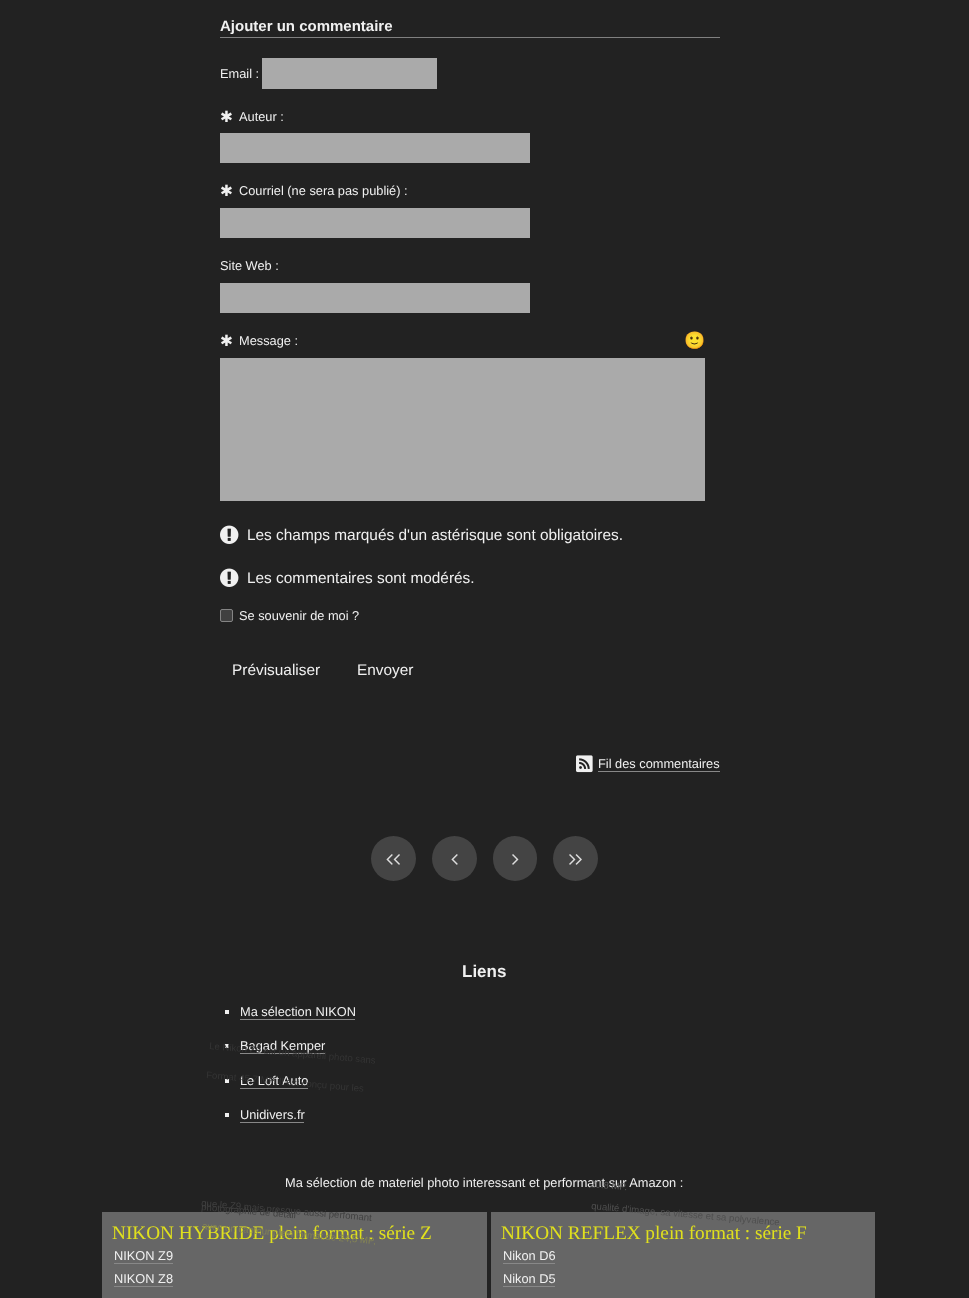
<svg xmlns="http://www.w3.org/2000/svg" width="969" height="1298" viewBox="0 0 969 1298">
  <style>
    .t1 { font: bold 15px Liberation Sans; fill: #f0f0f0; }
    .t2 { font: 12.8px Liberation Sans; fill: #f0f0f0; }
    .t3 { font: 15.4px DejaVu Sans; fill: #f0f0f0; }
    .t4 { font: 17px Noto Color Emoji; fill: #f0f0f0; }
    .t5 { font: 15.4px Liberation Sans; fill: #f0f0f0; }
    .t6 { font: bold 17px Liberation Sans; fill: #f0f0f0; }
    .t7 { font: 9.6px Liberation Sans; fill: #343434; }
    .t8 { font: 9.6px Liberation Sans; fill: #404040; }
    .t9 { font: 19.25px Liberation Serif; fill: #e0e01d; }
    .t10 { font: 9.6px Liberation Sans; fill: #848454; }
    .t11 { font: 9.6px Liberation Sans; fill: #5a5a5a; }
    .t12 { font: 9.6px Liberation Sans; fill: #4f4f4f; }
  </style>
  <rect width="100%" height="100%" fill="#222"/>
  <rect x="220" y="37" width="500" height="1" fill="#808080"/>
  <text x="220" y="31" class="t1">Ajouter un commentaire</text>
  <text x="220" y="78" class="t2">Email :</text>
  <rect x="262" y="58" width="175" height="31" fill="#aaa"/>
  <text x="220" y="122" class="t3">✱</text>
  <text x="239" y="121" class="t2">Auteur :</text>
  <rect x="220" y="133" width="310" height="30" fill="#aaa"/>
  <text x="220" y="196" class="t3">✱</text>
  <text x="239" y="195" class="t2">Courriel (ne sera pas publié) :</text>
  <rect x="220" y="208" width="310" height="30" fill="#aaa"/>
  <text x="220" y="270" class="t2">Site Web :</text>
  <rect x="220" y="283" width="310" height="30" fill="#aaa"/>
  <text x="220" y="346" class="t3">✱</text>
  <text x="239" y="345" class="t2">Message :</text>
  <text x="684" y="346" class="t4">🙂</text>
  <rect x="220" y="358" width="485" height="143" fill="#aaa"/>
  <image x="220" y="525" width="19" height="19" href="images/1.png"/>
  <text x="247" y="540" class="t5">Les champs marqués d'un astérisque sont obligatoires.</text>
  <image x="220" y="568" width="19" height="19" href="images/1.png"/>
  <text x="247" y="583" class="t5">Les commentaires sont modérés.</text>
  <rect x="220.5" y="609.5" width="12" height="12" rx="1.5" fill="#404040" stroke="#848484"/>
  <text x="239" y="620" class="t2">Se souvenir de moi ?</text>
  <text x="232" y="675" class="t5">Prévisualiser</text>
  <text x="357" y="675" class="t5">Envoyer</text>
  <image x="576" y="755" width="17" height="18" href="images/2.png"/>
  <text x="598" y="768" class="t2">Fil des commentaires</text>
  <rect x="598" y="771" width="122" height="1" fill="#888"/>
  <circle cx="393.5" cy="858.5" r="22.5" fill="#444"/>
  <image x="386" y="854" width="14" height="11" href="images/3.png"/>
  <circle cx="454.5" cy="858.5" r="22.5" fill="#444"/>
  <image x="451" y="854" width="7" height="11" href="images/4.png"/>
  <rect x="493" y="836" width="44" height="45" rx="22" fill="#444"/>
  <image x="512" y="854" width="7" height="11" href="images/5.png"/>
  <circle cx="575.5" cy="858.5" r="22.5" fill="#444"/>
  <image x="569" y="854" width="13" height="11" href="images/6.png"/>
  <text x="462" y="977" class="t6">Liens</text>
  <rect x="225" y="1010" width="4" height="4" fill="#f0f0f0"/>
  <text x="240" y="1016" class="t2">Ma sélection NIKON</text>
  <rect x="240" y="1019" width="115" height="1" fill="#888"/>
  <rect x="225" y="1044" width="4" height="4" fill="#f0f0f0"/>
  <text x="240" y="1050" class="t2">Bagad Kemper</text>
  <rect x="240" y="1053" width="85" height="1" fill="#888"/>
  <rect x="225" y="1079" width="4" height="4" fill="#f0f0f0"/>
  <text x="240" y="1085" class="t2">Le Loft Auto</text>
  <rect x="240" y="1088" width="68" height="1" fill="#888"/>
  <rect x="225" y="1113" width="4" height="4" fill="#f0f0f0"/>
  <text x="240" y="1119" class="t2">Unidivers.fr</text>
  <rect x="240" y="1122" width="64" height="1" fill="#888"/>
  <rect x="102" y="1212" width="385" height="86" fill="#666"/>
  <text x="209" y="1049" transform="rotate(5 209 1049)" class="t7">Le Nikon Z9 est un appareil photo sans</text>
  <text x="206" y="1078" transform="rotate(5 206 1078)" class="t7">Format 45.7 MP. Il est conçu pour les</text>
  <text x="114" y="1260" class="t2">NIKON Z9</text>
  <rect x="114" y="1263" width="59" height="1" fill="#888"/>
  <text x="201" y="1206" transform="rotate(5 201 1206)" class="t8">que le Z9 mais presque aussi perfomant</text>
  <text x="114" y="1283" class="t2">NIKON Z8</text>
  <rect x="114" y="1286" width="59" height="1" fill="#888"/>
  <text x="201" y="1210" transform="rotate(5 201 1210)" class="t8">photographie de détail</text>
  <text x="112" y="1239" class="t9">NIKON HYBRIDE plein format : série Z</text>
  <text x="202" y="1229" transform="rotate(5 202 1229)" class="t10">avec un capteur plein format de 24,5 MP,</text>
  <rect x="491" y="1212" width="384" height="86" fill="#666"/>
  <text x="285" y="1187" class="t2">Ma sélection de materiel photo interessant et performant sur Amazon :</text>
  <text x="590" y="1187" transform="rotate(5 590 1187)" class="t11">20.8 MP.</text>
  <text x="503" y="1283" class="t2">Nikon D5</text>
  <rect x="503" y="1286" width="52" height="1" fill="#888"/>
  <text x="591" y="1209" transform="rotate(5 591 1209)" class="t12">qualité d'image, sa vitesse et sa polyvalence</text>
  <text x="503" y="1260" class="t2">Nikon D6</text>
  <rect x="503" y="1263" width="52" height="1" fill="#888"/>
  <text x="501" y="1239" class="t9">NIKON REFLEX plein format : série F</text>
</svg>
